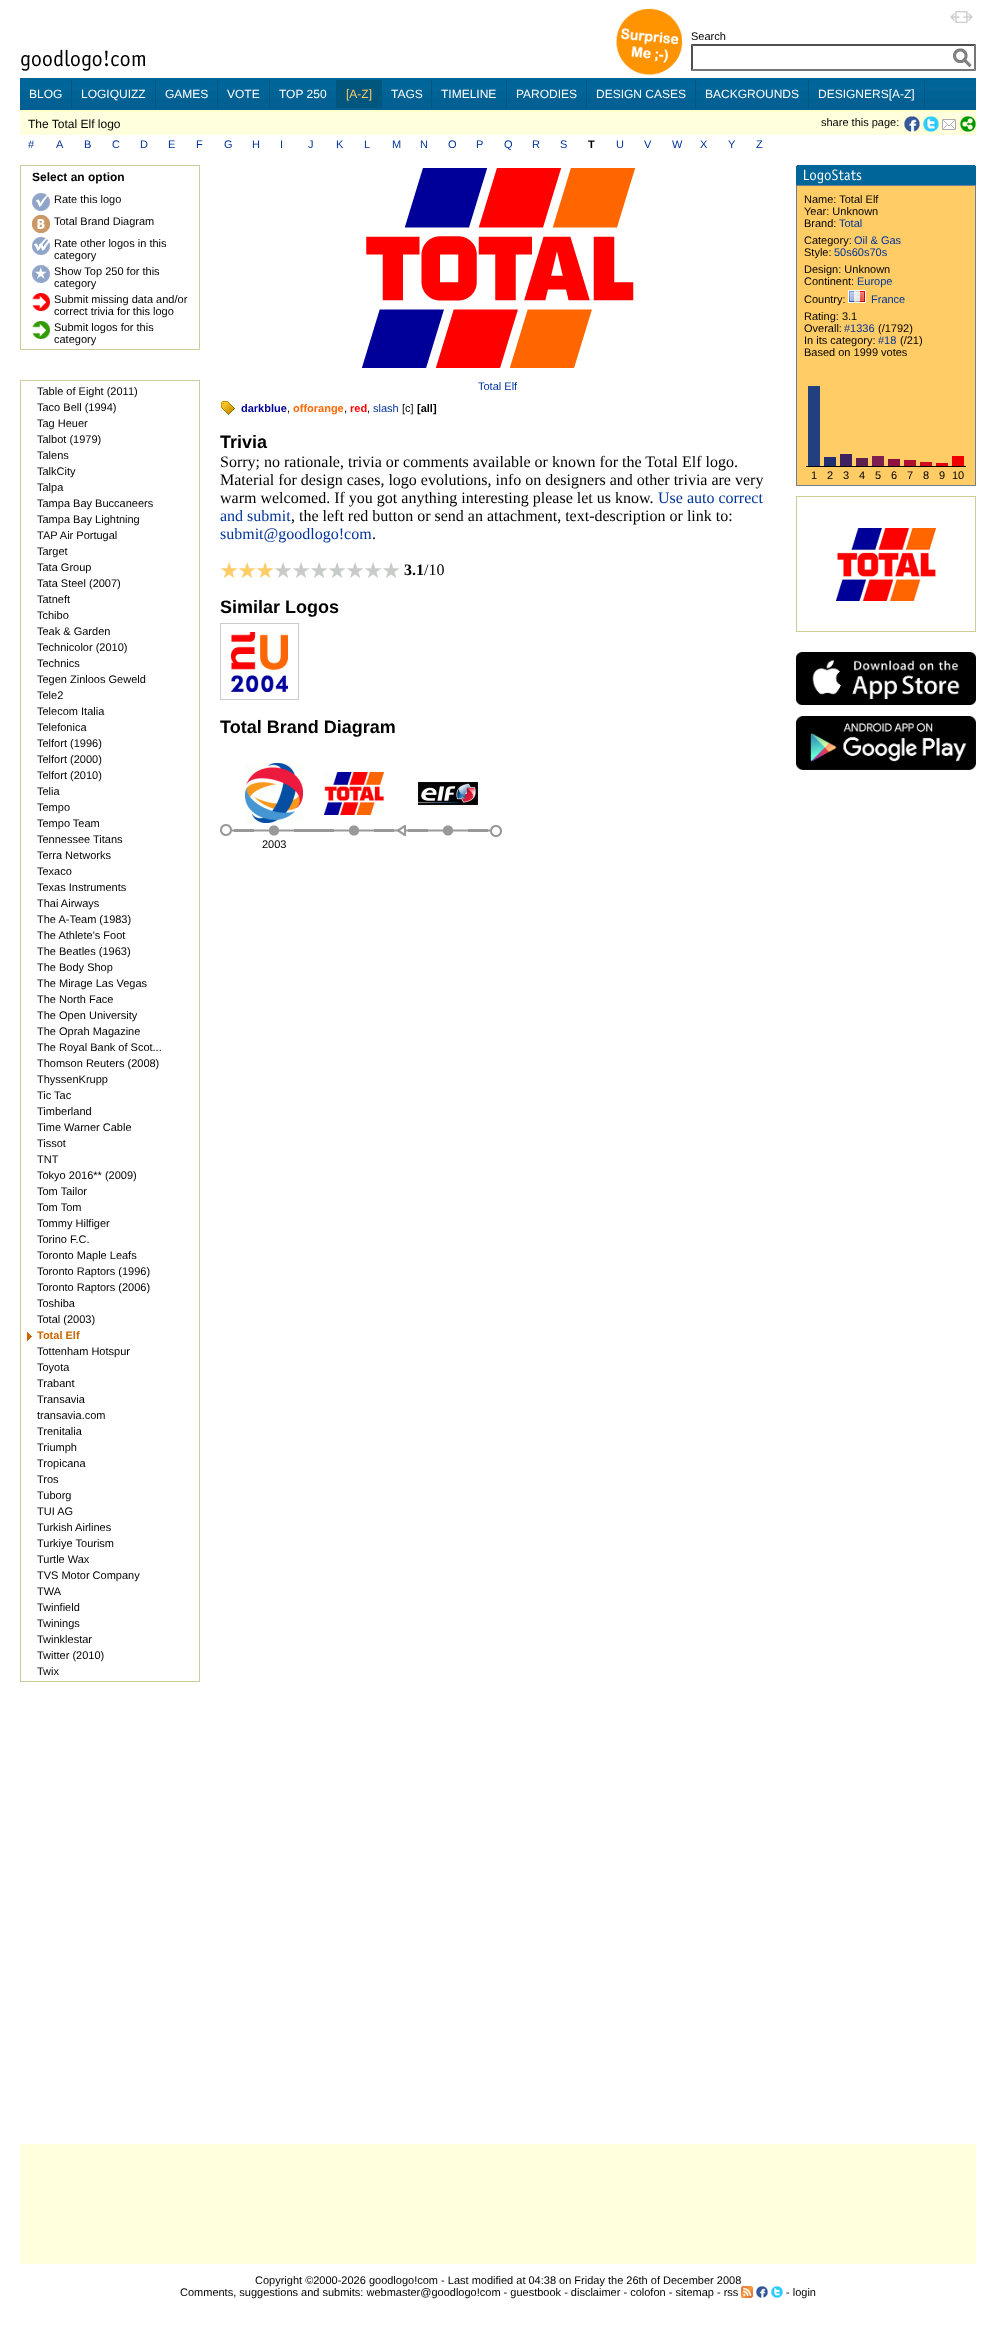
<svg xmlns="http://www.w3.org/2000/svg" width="996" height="2328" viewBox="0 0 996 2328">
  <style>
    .t1 { font: 11px Liberation Sans; fill: #000; }
    .t2 { font: 12px Liberation Sans; fill: #fff; }
    .t3 { font: 12px Liberation Sans; fill: #fc6; }
    .t4 { font: 12px Liberation Sans; fill: #000; }
    .t5 { font: 11px Liberation Sans; fill: #039; }
    .t6 { font: bold 11px Liberation Sans; fill: #000; }
    .t7 { font: bold 12px Liberation Sans; fill: #000; }
    .t8 { font: bold 11px Liberation Sans; fill: #c60; }
    .t9 { font: bold 11px Liberation Sans; fill: #009; }
    .t10 { font: bold 11px Liberation Sans; fill: #f60; }
    .t11 { font: bold 11px Liberation Sans; fill: #f00; }
    .t12 { font: bold 18px Liberation Sans; fill: #000; }
    .t13 { font: 16px Liberation Serif; fill: #000; }
    .t14 { font: 16px Liberation Serif; fill: #039; }
    .t15 { font: bold 16px Liberation Serif; fill: #000; }
  </style>
  <rect width="100%" height="100%" fill="#fff"/>
  <image x="615" y="8" width="68" height="68" href="images/1.png"/>
  <image x="950" y="11" width="23" height="12" href="images/2.png"/>
  <text x="691" y="40" class="t1">Search</text>
  <image x="953" y="48" width="19" height="20" href="images/3.png"/>
  <path d="M691 44H976L974 46H693Z" fill="#4f4f4f"/>
  <path d="M976 44V71L974 69V46Z" fill="#767676"/>
  <path d="M976 71H691L693 69H974Z" fill="#767676"/>
  <path d="M691 71V44L693 46V69Z" fill="#4f4f4f"/>
  <image x="21" y="49" width="124" height="22" href="images/4.png"/>
  <rect x="20" y="78" width="956" height="9" fill="#069"/>
  <image x="20" y="87" width="956" height="23" href="images/5.png"/>
  <rect x="71" y="80" width="1" height="28" fill="#00567c"/>
  <text x="29" y="98" class="t2">BLOG</text>
  <rect x="155" y="80" width="1" height="28" fill="#00567c"/>
  <text x="81" y="98" class="t2">LOGIQUIZZ</text>
  <rect x="217" y="80" width="1" height="28" fill="#00567c"/>
  <text x="165" y="98" class="t2">GAMES</text>
  <rect x="269" y="80" width="1" height="28" fill="#00567c"/>
  <text x="227" y="98" class="t2">VOTE</text>
  <rect x="336" y="80" width="1" height="28" fill="#00567c"/>
  <text x="279" y="98" class="t2">TOP 250</text>
  <rect x="337" y="80" width="45" height="28" fill="#00567c"/>
  <text x="346" y="98" class="t3">[A-Z]</text>
  <rect x="431" y="80" width="1" height="28" fill="#00567c"/>
  <text x="391" y="98" class="t2">TAGS</text>
  <rect x="506" y="80" width="1" height="28" fill="#00567c"/>
  <text x="441" y="98" class="t2">TIMELINE</text>
  <rect x="586" y="80" width="1" height="28" fill="#00567c"/>
  <text x="516" y="98" class="t2">PARODIES</text>
  <rect x="695" y="80" width="1" height="28" fill="#00567c"/>
  <text x="596" y="98" class="t2">DESIGN CASES</text>
  <rect x="808" y="80" width="1" height="28" fill="#00567c"/>
  <text x="705" y="98" class="t2">BACKGROUNDS</text>
  <rect x="924" y="80" width="1" height="28" fill="#00567c"/>
  <text x="818" y="98" class="t2">DESIGNERS[A-Z]</text>
  <rect x="20" y="110" width="956" height="2" fill="#ffc"/>
  <rect x="20" y="112" width="956" height="23" fill="#ffd"/>
  <text x="28" y="128" class="t4">The Total Elf logo</text>
  <text x="821" y="126" class="t1">share this page:</text>
  <image x="904" y="116" width="16" height="16" href="images/6.png"/>
  <image x="923" y="116" width="16" height="16" href="images/7.png"/>
  <image x="942" y="119" width="14" height="11" href="images/8.png"/>
  <image x="960" y="116" width="16" height="16" href="images/9.png"/>
  <text x="28" y="148" class="t5">#</text>
  <text x="56" y="148" class="t5">A</text>
  <text x="84" y="148" class="t5">B</text>
  <text x="112" y="148" class="t5">C</text>
  <text x="140" y="148" class="t5">D</text>
  <text x="168" y="148" class="t5">E</text>
  <text x="196" y="148" class="t5">F</text>
  <text x="224" y="148" class="t5">G</text>
  <text x="252" y="148" class="t5">H</text>
  <text x="280" y="148" class="t5">I</text>
  <text x="308" y="148" class="t5">J</text>
  <text x="336" y="148" class="t5">K</text>
  <text x="364" y="148" class="t5">L</text>
  <text x="392" y="148" class="t5">M</text>
  <text x="420" y="148" class="t5">N</text>
  <text x="448" y="148" class="t5">O</text>
  <text x="476" y="148" class="t5">P</text>
  <text x="504" y="148" class="t5">Q</text>
  <text x="532" y="148" class="t5">R</text>
  <text x="560" y="148" class="t5">S</text>
  <text x="588" y="148" class="t6">T</text>
  <text x="616" y="148" class="t5">U</text>
  <text x="644" y="148" class="t5">V</text>
  <text x="672" y="148" class="t5">W</text>
  <text x="700" y="148" class="t5">X</text>
  <text x="728" y="148" class="t5">Y</text>
  <text x="756" y="148" class="t5">Z</text>
  <rect x="20" y="165" width="180" height="185" fill="#cc9"/>
  <rect x="21" y="166" width="178" height="183" fill="#fff"/>
  <text x="32" y="181" class="t7">Select an option</text>
  <image x="32" y="193" width="18" height="18" href="images/10.png"/>
  <text x="54" y="203" class="t1">Rate this logo</text>
  <image x="32" y="215" width="18" height="18" href="images/11.png"/>
  <text x="54" y="225" class="t1">Total Brand Diagram</text>
  <image x="32" y="237" width="18" height="18" href="images/12.png"/>
  <text x="54" y="247" class="t1">Rate other logos in this</text>
  <text x="54" y="259" class="t1">category</text>
  <image x="32" y="265" width="18" height="18" href="images/13.png"/>
  <text x="54" y="275" class="t1">Show Top 250 for this</text>
  <text x="54" y="287" class="t1">category</text>
  <image x="32" y="293" width="18" height="18" href="images/14.png"/>
  <text x="54" y="303" class="t1">Submit missing data and/or</text>
  <text x="54" y="315" class="t1">correct trivia for this logo</text>
  <image x="32" y="321" width="18" height="18" href="images/15.png"/>
  <text x="54" y="331" class="t1">Submit logos for this</text>
  <text x="54" y="343" class="t1">category</text>
  <rect x="20" y="380" width="180" height="1302" fill="#cc9"/>
  <rect x="21" y="381" width="178" height="1300" fill="#fff"/>
  <text x="37" y="395" class="t1">Table of Eight (2011)</text>
  <text x="37" y="411" class="t1">Taco Bell (1994)</text>
  <text x="37" y="427" class="t1">Tag Heuer</text>
  <text x="37" y="443" class="t1">Talbot (1979)</text>
  <text x="37" y="459" class="t1">Talens</text>
  <text x="37" y="475" class="t1">TalkCity</text>
  <text x="37" y="491" class="t1">Talpa</text>
  <text x="37" y="507" class="t1">Tampa Bay Buccaneers</text>
  <text x="37" y="523" class="t1">Tampa Bay Lightning</text>
  <text x="37" y="539" class="t1">TAP Air Portugal</text>
  <text x="37" y="555" class="t1">Target</text>
  <text x="37" y="571" class="t1">Tata Group</text>
  <text x="37" y="587" class="t1">Tata Steel (2007)</text>
  <text x="37" y="603" class="t1">Tatneft</text>
  <text x="37" y="619" class="t1">Tchibo</text>
  <text x="37" y="635" class="t1">Teak &amp; Garden</text>
  <text x="37" y="651" class="t1">Technicolor (2010)</text>
  <text x="37" y="667" class="t1">Technics</text>
  <text x="37" y="683" class="t1">Tegen Zinloos Geweld</text>
  <text x="37" y="699" class="t1">Tele2</text>
  <text x="37" y="715" class="t1">Telecom Italia</text>
  <text x="37" y="731" class="t1">Telefonica</text>
  <text x="37" y="747" class="t1">Telfort (1996)</text>
  <text x="37" y="763" class="t1">Telfort (2000)</text>
  <text x="37" y="779" class="t1">Telfort (2010)</text>
  <text x="37" y="795" class="t1">Telia</text>
  <text x="37" y="811" class="t1">Tempo</text>
  <text x="37" y="827" class="t1">Tempo Team</text>
  <text x="37" y="843" class="t1">Tennessee Titans</text>
  <text x="37" y="859" class="t1">Terra Networks</text>
  <text x="37" y="875" class="t1">Texaco</text>
  <text x="37" y="891" class="t1">Texas Instruments</text>
  <text x="37" y="907" class="t1">Thai Airways</text>
  <text x="37" y="923" class="t1">The A-Team (1983)</text>
  <text x="37" y="939" class="t1">The Athlete's Foot</text>
  <text x="37" y="955" class="t1">The Beatles (1963)</text>
  <text x="37" y="971" class="t1">The Body Shop</text>
  <text x="37" y="987" class="t1">The Mirage Las Vegas</text>
  <text x="37" y="1003" class="t1">The North Face</text>
  <text x="37" y="1019" class="t1">The Open University</text>
  <text x="37" y="1035" class="t1">The Oprah Magazine</text>
  <text x="37" y="1051" class="t1">The Royal Bank of Scot...</text>
  <text x="37" y="1067" class="t1">Thomson Reuters (2008)</text>
  <text x="37" y="1083" class="t1">ThyssenKrupp</text>
  <text x="37" y="1099" class="t1">Tic Tac</text>
  <text x="37" y="1115" class="t1">Timberland</text>
  <text x="37" y="1131" class="t1">Time Warner Cable</text>
  <text x="37" y="1147" class="t1">Tissot</text>
  <text x="37" y="1163" class="t1">TNT</text>
  <text x="37" y="1179" class="t1">Tokyo 2016** (2009)</text>
  <text x="37" y="1195" class="t1">Tom Tailor</text>
  <text x="37" y="1211" class="t1">Tom Tom</text>
  <text x="37" y="1227" class="t1">Tommy Hilfiger</text>
  <text x="37" y="1243" class="t1">Torino F.C.</text>
  <text x="37" y="1259" class="t1">Toronto Maple Leafs</text>
  <text x="37" y="1275" class="t1">Toronto Raptors (1996)</text>
  <text x="37" y="1291" class="t1">Toronto Raptors (2006)</text>
  <text x="37" y="1307" class="t1">Toshiba</text>
  <text x="37" y="1323" class="t1">Total (2003)</text>
  <image x="27" y="1332" width="5" height="9" href="images/16.png"/>
  <text x="37" y="1339" class="t8">Total Elf</text>
  <text x="37" y="1355" class="t1">Tottenham Hotspur</text>
  <text x="37" y="1371" class="t1">Toyota</text>
  <text x="37" y="1387" class="t1">Trabant</text>
  <text x="37" y="1403" class="t1">Transavia</text>
  <text x="37" y="1419" class="t1">transavia.com</text>
  <text x="37" y="1435" class="t1">Trenitalia</text>
  <text x="37" y="1451" class="t1">Triumph</text>
  <text x="37" y="1467" class="t1">Tropicana</text>
  <text x="37" y="1483" class="t1">Tros</text>
  <text x="37" y="1499" class="t1">Tuborg</text>
  <text x="37" y="1515" class="t1">TUI AG</text>
  <text x="37" y="1531" class="t1">Turkish Airlines</text>
  <text x="37" y="1547" class="t1">Turkiye Tourism</text>
  <text x="37" y="1563" class="t1">Turtle Wax</text>
  <text x="37" y="1579" class="t1">TVS Motor Company</text>
  <text x="37" y="1595" class="t1">TWA</text>
  <text x="37" y="1611" class="t1">Twinfield</text>
  <text x="37" y="1627" class="t1">Twinings</text>
  <text x="37" y="1643" class="t1">Twinklestar</text>
  <text x="37" y="1659" class="t1">Twitter (2010)</text>
  <text x="37" y="1675" class="t1">Twix</text>
  <image x="796" y="165" width="180" height="20" href="images/17.png"/>
  <rect x="796" y="185" width="180" height="301" fill="#708090"/>
  <rect x="797" y="186" width="178" height="299" fill="#fc6"/>
  <text x="804" y="203" class="t1">Name: Total Elf</text>
  <text x="804" y="215" class="t1">Year: Unknown</text>
  <text x="804" y="227" class="t1">Brand:</text>
  <text x="839" y="227" class="t5">Total</text>
  <text x="804" y="244" class="t1">Category:</text>
  <text x="854" y="244" class="t5">Oil &amp; Gas</text>
  <text x="804" y="256" class="t1">Style:</text>
  <text x="834" y="256" class="t5">50s60s70s</text>
  <text x="804" y="273" class="t1">Design: Unknown</text>
  <text x="804" y="285" class="t1">Continent:</text>
  <text x="857" y="285" class="t5">Europe</text>
  <rect x="848.5" y="290.5" width="17" height="12" fill="none" stroke="#fff"/>
  <text x="804" y="303" class="t1">Country:</text>
  <image x="849" y="291" width="16" height="11" href="images/18.png"/>
  <text x="871" y="303" class="t5">France</text>
  <text x="804" y="320" class="t1">Rating: 3.1</text>
  <text x="804" y="332" class="t1">Overall:</text>
  <text x="844" y="332" class="t5">#1336</text>
  <text x="878" y="332" class="t1">(/1792)</text>
  <text x="804" y="344" class="t1">In its category:</text>
  <text x="878" y="344" class="t5">#18</text>
  <text x="900" y="344" class="t1">(/21)</text>
  <text x="804" y="356" class="t1">Based on 1999 votes</text>
  <rect x="806" y="466" width="160" height="1" fill="#000"/>
  <rect x="808" y="386" width="12" height="80" fill="#204080"/>
  <rect x="824" y="457" width="12" height="9" fill="#202f70"/>
  <rect x="840" y="454" width="12" height="12" fill="#3f2060"/>
  <rect x="856" y="458" width="12" height="8" fill="#5f2050"/>
  <rect x="872" y="456" width="12" height="10" fill="#7f1f4f"/>
  <rect x="888" y="459" width="12" height="7" fill="#90103f"/>
  <rect x="904" y="460" width="12" height="6" fill="#b0102f"/>
  <rect x="920" y="462" width="12" height="4" fill="#cf0f1f"/>
  <rect x="936" y="463" width="12" height="3" fill="#e0000f"/>
  <rect x="952" y="456" width="12" height="10" fill="#f00000"/>
  <text x="811" y="479" class="t1">1</text>
  <text x="827" y="479" class="t1">2</text>
  <text x="843" y="479" class="t1">3</text>
  <text x="859" y="479" class="t1">4</text>
  <text x="875" y="479" class="t1">5</text>
  <text x="891" y="479" class="t1">6</text>
  <text x="907" y="479" class="t1">7</text>
  <text x="923" y="479" class="t1">8</text>
  <text x="939" y="479" class="t1">9</text>
  <text x="952" y="479" class="t1">10</text>
  <rect x="796" y="496" width="180" height="136" fill="#cc9"/>
  <rect x="797" y="497" width="178" height="134" fill="#fff"/>
  <image x="836" y="528" width="100" height="73" href="images/19.png"/>
  <image x="796" y="652" width="180" height="53" href="images/20.png"/>
  <image x="796" y="716" width="180" height="54" href="images/21.png"/>
  <image x="362" y="168" width="273" height="200" href="images/22.png"/>
  <text x="478" y="390" class="t5">Total Elf</text>
  <image x="221" y="401" width="14" height="14" href="images/23.png"/>
  <text x="241" y="412" class="t9">darkblue</text>
  <text x="287" y="412" class="t1">,</text>
  <text x="293" y="412" class="t10">offorange</text>
  <text x="344" y="412" class="t1">,</text>
  <text x="350" y="412" class="t11">red</text>
  <text x="367" y="412" class="t1">,</text>
  <text x="373" y="412" class="t5">slash</text>
  <text x="402" y="412" class="t1">[c]</text>
  <text x="417" y="412" class="t6">[all]</text>
  <text x="220" y="448" class="t12">Trivia</text>
  <text x="220" y="467" class="t13">Sorry; no rationale, trivia or comments available or known for the Total Elf logo.</text>
  <text x="220" y="485" class="t13">Material for design cases, logo evolutions, info on designers and other trivia are very</text>
  <text x="220" y="503" class="t13">warm welcomed. If you got anything interesting please let us know.</text>
  <text x="658" y="503" class="t14">Use auto correct</text>
  <text x="220" y="521" class="t14">and submit</text>
  <text x="291" y="521" class="t13">, the left red button or send an attachment, text-description or link to:</text>
  <text x="220" y="539" class="t14">submit@goodlogo!com</text>
  <text x="372" y="539" class="t13">.</text>
  <image x="220" y="562" width="18" height="17" href="images/24.png"/>
  <image x="238" y="562" width="18" height="17" href="images/24.png"/>
  <image x="256" y="562" width="18" height="17" href="images/24.png"/>
  <image x="275" y="562" width="17" height="16" href="images/25.png"/>
  <image x="293" y="562" width="17" height="16" href="images/25.png"/>
  <image x="311" y="562" width="17" height="16" href="images/25.png"/>
  <image x="329" y="562" width="17" height="16" href="images/25.png"/>
  <image x="347" y="562" width="17" height="16" href="images/25.png"/>
  <image x="365" y="562" width="17" height="16" href="images/25.png"/>
  <image x="383" y="562" width="17" height="16" href="images/25.png"/>
  <text x="404" y="575" class="t15">3.1</text>
  <text x="424" y="575" class="t13">/10</text>
  <text x="220" y="613" class="t12">Similar Logos</text>
  <rect x="220.5" y="623.5" width="78" height="76" fill="none" stroke="#ccc"/>
  <image x="231" y="632" width="57" height="60" href="images/26.png"/>
  <text x="220" y="733" class="t12">Total Brand Diagram</text>
  <image x="220" y="763" width="14" height="135" href="images/27.png"/>
  <image x="324" y="772" width="60" height="43" href="images/28.png"/>
  <rect x="234" y="829" width="160" height="3" fill="#999"/>
  <image x="334" y="825" width="40" height="11" href="images/29.png"/>
  <image x="245" y="763" width="58" height="60" href="images/30.png"/>
  <image x="254" y="825" width="40" height="11" href="images/29.png"/>
  <text x="262" y="848" class="t1">2003</text>
  <image x="408" y="763" width="80" height="135" href="images/31.png"/>
  <image x="394" y="763" width="14" height="135" href="images/32.png"/>
  <image x="418" y="782" width="60" height="23" href="images/33.png"/>
  <rect x="408" y="829" width="80" height="3" fill="#fff"/>
  <rect x="408" y="829" width="80" height="3" fill="#999"/>
  <image x="428" y="825" width="40" height="11" href="images/29.png"/>
  <image x="488" y="825" width="14" height="12" href="images/34.png"/>
  <rect x="20" y="2144" width="956" height="120" fill="#ffd"/>
  <text x="255" y="2284" class="t1">Copyright ©2000-2026 goodlogo!com - Last modified at 04:38 on Friday the 26th of December 2008</text>
  <text x="180" y="2296" class="t1">Comments, suggestions and submits: webmaster@goodlogo!com - guestbook - disclaimer - colofon - sitemap - rss</text>
  <image x="741" y="2286" width="12" height="12" href="images/35.png"/>
  <image x="756" y="2286" width="12" height="12" href="images/36.png"/>
  <image x="771" y="2286" width="12" height="12" href="images/37.png"/>
  <text x="786" y="2296" class="t1">- login</text>
</svg>
